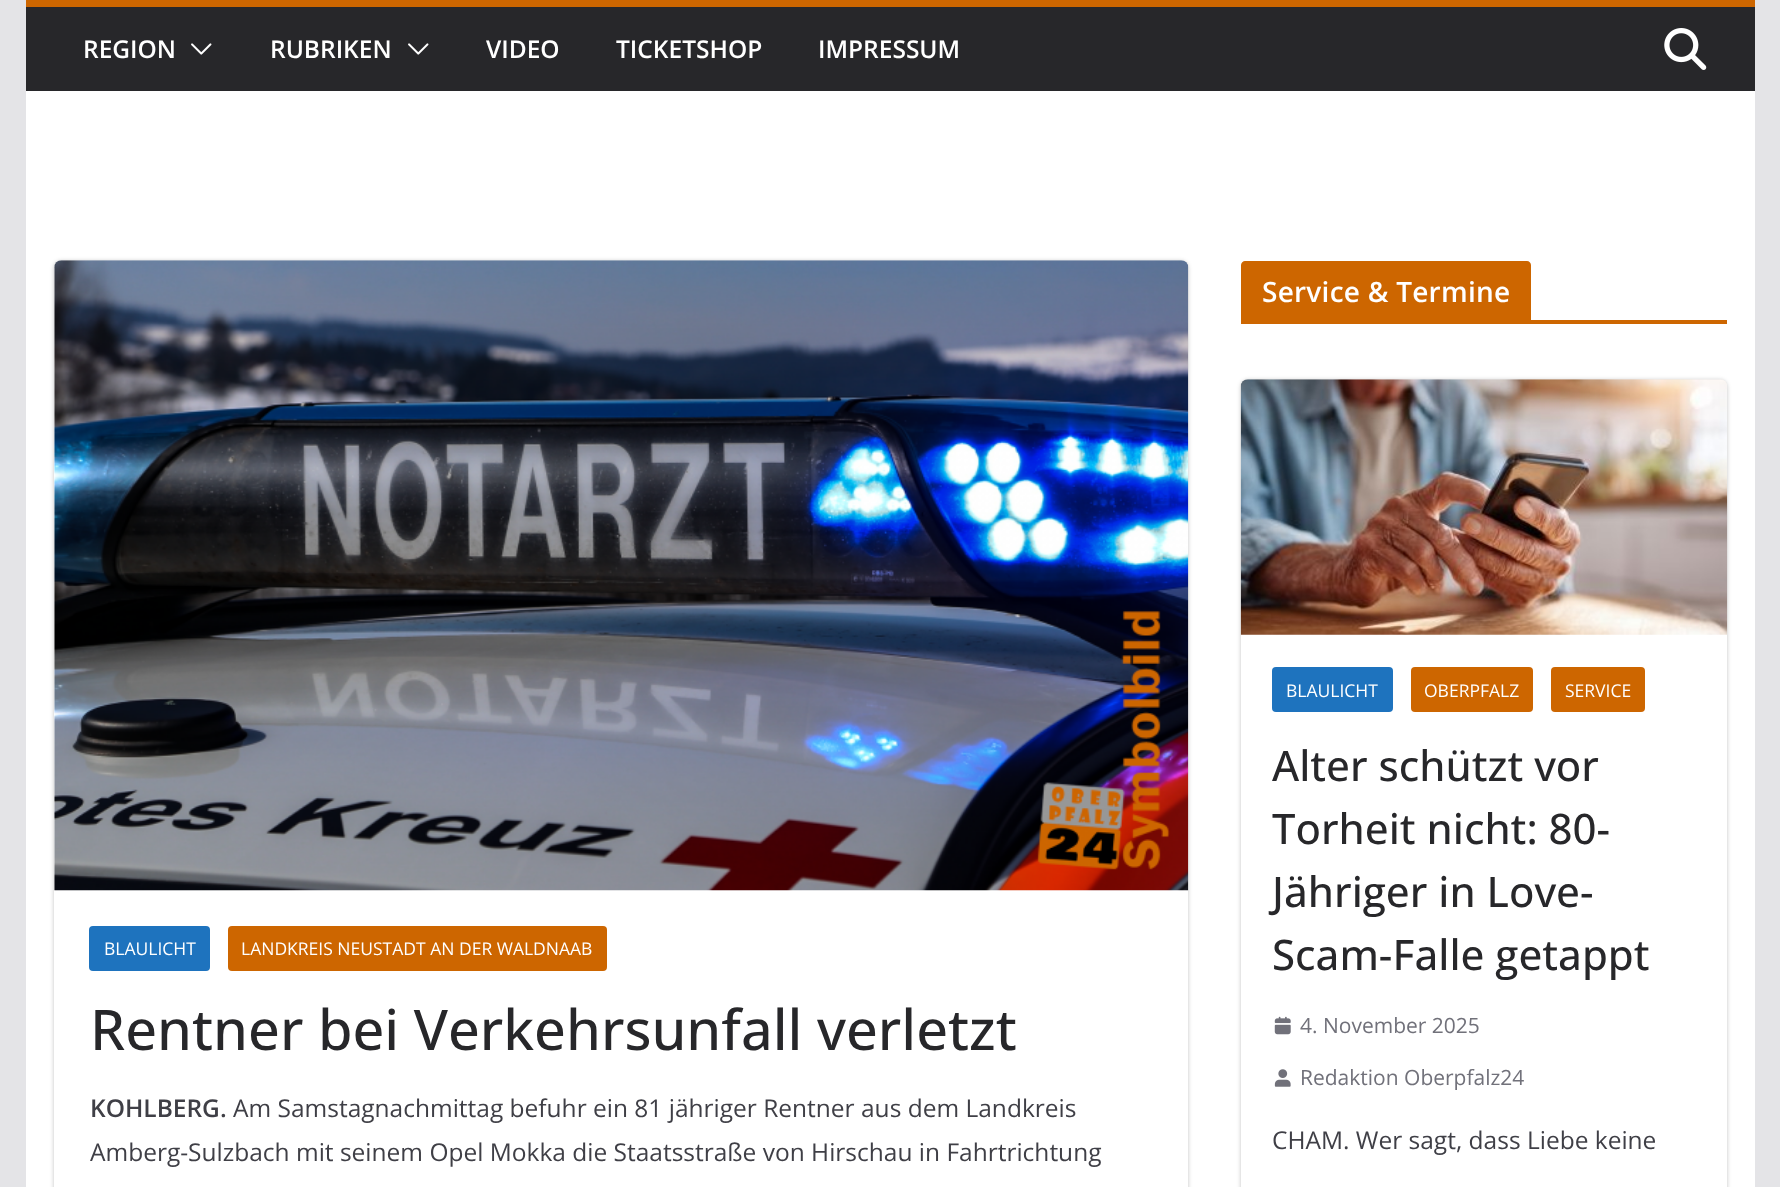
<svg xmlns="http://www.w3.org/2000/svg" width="1780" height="1187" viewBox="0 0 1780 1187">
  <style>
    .t1 { font: 600 24.5px Open Sans; fill: #fff; }
    .t2 { font: 17.5px Open Sans; fill: #fff; }
    .t3 { font: 500 56px Open Sans; fill: #27272a; }
    .t4 { font: 600 24.5px Open Sans; fill: #3f3f46; }
    .t5 { font: 24.5px Open Sans; fill: #3f3f46; }
    .t6 { font: 600 28px Open Sans; letter-spacing: 0.25px; fill: #fff; }
    .t7 { font: 500 42px Open Sans; fill: #27272a; }
    .t8 { font: 21px Open Sans; fill: #71717a; }
  </style>
  <defs>
    <clipPath id="clip1"><path d="M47 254H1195V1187H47ZM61 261H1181C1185 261 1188 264 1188 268V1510C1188 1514 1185 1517 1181 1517H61C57 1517 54 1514 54 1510V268C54 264 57 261 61 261Z" clip-rule="evenodd"/></clipPath>
    <clipPath id="clip2"><path d="M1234 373H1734V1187H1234ZM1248 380H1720C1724 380 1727 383 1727 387V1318C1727 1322 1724 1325 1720 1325H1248C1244 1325 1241 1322 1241 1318V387C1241 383 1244 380 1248 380Z" clip-rule="evenodd"/></clipPath>
  </defs>
  <rect width="100%" height="100%" fill="#e4e4e7"/>
  <rect x="26" y="7" width="1729" height="84" fill="#27272a"/>
  <rect x="26" y="0" width="1729" height="7" fill="#cd6600"/>
  <text x="83" y="58" class="t1">REGION</text>
  <image x="191" y="43" width="21" height="12" href="images/1.png"/>
  <text x="270" y="58" class="t1">RUBRIKEN</text>
  <image x="408" y="43" width="21" height="12" href="images/1.png"/>
  <text x="486" y="58" class="t1">VIDEO</text>
  <text x="616" y="58" class="t1">TICKETSHOP</text>
  <text x="818" y="58" class="t1">IMPRESSUM</text>
  <image x="1664" y="28" width="43" height="42" href="images/2.png"/>
  <rect x="26" y="91" width="1729" height="1096" fill="#fff"/>
  <g clip-path="url(#clip1)">
    <rect x="54" y="261" width="1134" height="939" rx="7" fill="#0000003d" filter="blur(2px)"/>
  </g>
  <image x="54" y="260" width="1135" height="631" href="images/3.png"/>
  <rect x="89" y="926" width="121" height="45" rx="4" fill="#1e73be"/>
  <text x="104" y="955" class="t2">BLAULICHT</text>
  <rect x="228" y="926" width="379" height="45" rx="4" fill="#cd6600"/>
  <text x="241" y="955" class="t2">LANDKREIS NEUSTADT AN DER WALDNAAB</text>
  <text x="90" y="1050" class="t3">Rentner bei Verkehrsunfall verletzt</text>
  <text x="90" y="1117" class="t4">KOHLBERG.</text>
  <text x="233" y="1117" class="t5">Am Samstagnachmittag befuhr ein 81 jähriger Rentner aus dem Landkreis</text>
  <text x="90" y="1161" class="t5">Amberg-Sulzbach mit seinem Opel Mokka die Staatsstraße von Hirschau in Fahrtrichtung</text>
  <rect x="1241" y="320" width="486" height="4" fill="#cd6600"/>
  <path d="M1245 261H1527C1529 261 1531 263 1531 265V320H1241V265C1241 263 1243 261 1245 261Z" fill="#cd6600"/>
  <text x="1262" y="302" class="t6">Service &amp; Termine</text>
  <g clip-path="url(#clip2)">
    <rect x="1241" y="380" width="486" height="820" rx="7" fill="#0000003d" filter="blur(2px)"/>
  </g>
  <image x="1240" y="379" width="488" height="256" href="images/4.png"/>
  <rect x="1272" y="667" width="121" height="45" rx="4" fill="#1e73be"/>
  <text x="1286" y="697" class="t2">BLAULICHT</text>
  <rect x="1411" y="667" width="122" height="45" rx="4" fill="#cd6600"/>
  <text x="1424" y="697" class="t2">OBERPFALZ</text>
  <rect x="1551" y="667" width="94" height="45" rx="4" fill="#cd6600"/>
  <text x="1565" y="697" class="t2">SERVICE</text>
  <text x="1272" y="781" class="t7">Alter schützt vor</text>
  <text x="1272" y="844" class="t7">Torheit nicht: 80-</text>
  <text x="1272" y="907" class="t7">Jähriger in Love-</text>
  <text x="1272" y="970" class="t7">Scam-Falle getappt</text>
  <image x="1274" y="1016" width="17" height="19" href="images/5.png"/>
  <text x="1300" y="1033" class="t8">4. November 2025</text>
  <image x="1274" y="1069" width="17" height="18" href="images/6.png"/>
  <text x="1300" y="1085" class="t8">Redaktion Oberpfalz24</text>
  <text x="1272" y="1149" class="t5">CHAM. Wer sagt, dass Liebe keine</text>
</svg>
